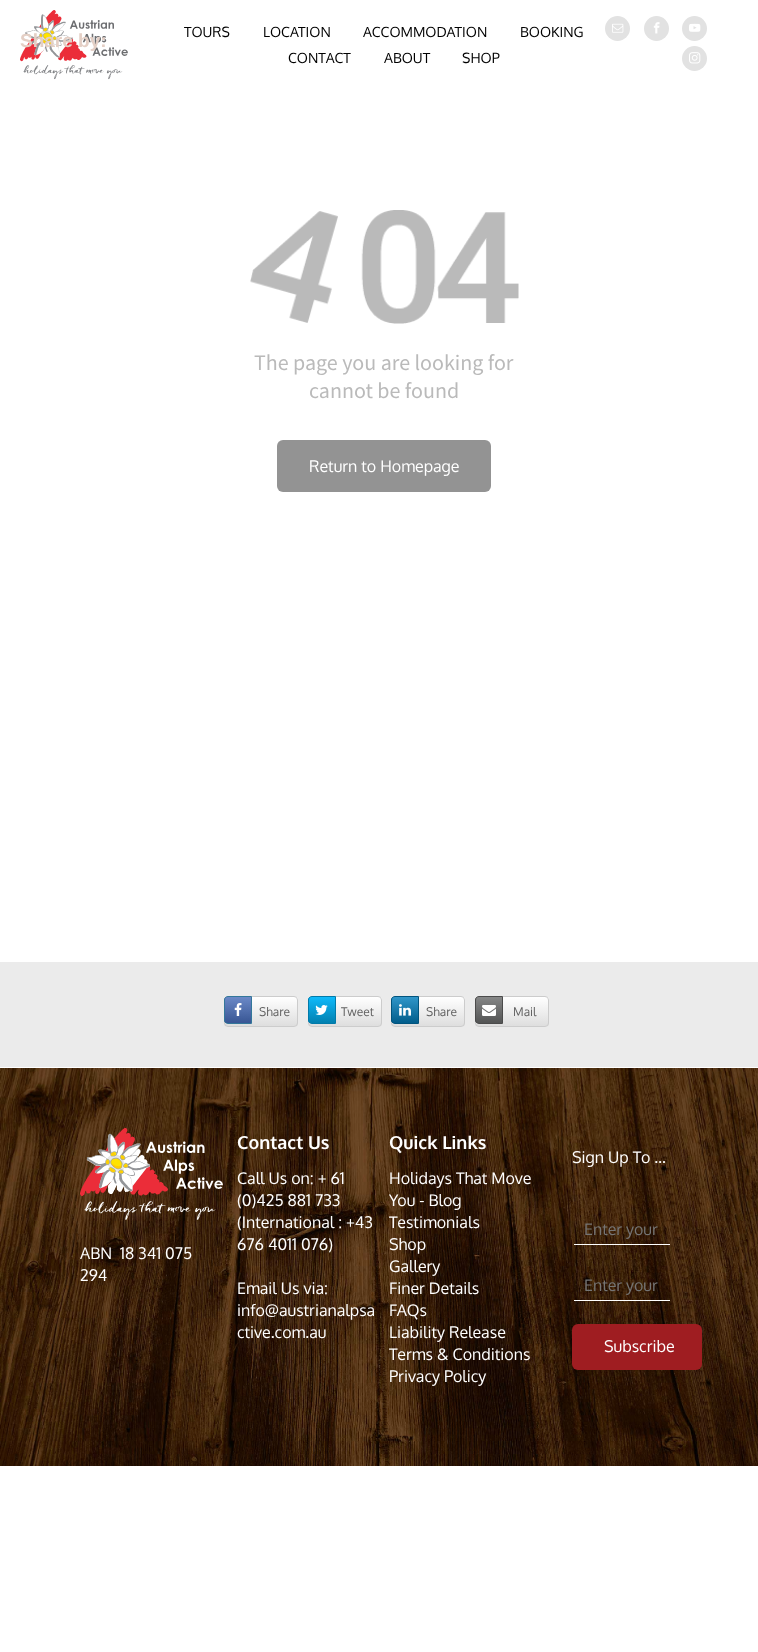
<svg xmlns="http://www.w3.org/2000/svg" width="758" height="1652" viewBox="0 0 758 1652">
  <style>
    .t1 { font: bold 19px Liberation Sans; fill: #e4cfc5; }
    .t2 { font: 14px Oxygen; fill: #000; }
    .t3 { font: 22px Source Sans Pro; fill: #bababa; }
    .t4 { font: 16px Oxygen; fill: #fff; }
    .t5 { font: 12px Oxygen; fill: #626262; }
    .t6 { font: bold 18px Oxygen; fill: #fff; }
    .t7 { font: 16px Oxygen; fill: #757575; }
  </style>
  <defs>
    <clipPath id="clip1"><rect x="224" y="996" width="74" height="31" rx="4"/></clipPath>
    <linearGradient id="g1" gradientUnits="userSpaceOnUse" x1="261" y1="997" x2="261" y2="1026"><stop offset="0" stop-color="#fff"/><stop offset="1" stop-color="#dedede"/></linearGradient>
    <clipPath id="clip2"><path d="M228 996H252V1024H228C226 1024 224 1022 224 1020V1000C224 998 226 996 228 996Z"/></clipPath>
    <linearGradient id="g2" gradientUnits="userSpaceOnUse" x1="238" y1="997" x2="238" y2="1023"><stop offset="0" stop-color="#6b89c7"/><stop offset="1" stop-color="#385694"/></linearGradient>
    <clipPath id="clip3"><rect x="308" y="996" width="74" height="31" rx="4"/></clipPath>
    <linearGradient id="g3" gradientUnits="userSpaceOnUse" x1="345" y1="997" x2="345" y2="1026"><stop offset="0" stop-color="#fff"/><stop offset="1" stop-color="#dedede"/></linearGradient>
    <clipPath id="clip4"><path d="M312 996H336V1024H312C310 1024 308 1022 308 1020V1000C308 998 310 996 312 996Z"/></clipPath>
    <linearGradient id="g4" gradientUnits="userSpaceOnUse" x1="322" y1="997" x2="322" y2="1023"><stop offset="0" stop-color="#0ebafb"/><stop offset="1" stop-color="#0180b0"/></linearGradient>
    <clipPath id="clip5"><rect x="391" y="996" width="74" height="31" rx="4"/></clipPath>
    <linearGradient id="g5" gradientUnits="userSpaceOnUse" x1="428" y1="997" x2="428" y2="1026"><stop offset="0" stop-color="#fff"/><stop offset="1" stop-color="#dedede"/></linearGradient>
    <clipPath id="clip6"><path d="M395 996H419V1024H395C393 1024 391 1022 391 1020V1000C391 998 393 996 395 996Z"/></clipPath>
    <linearGradient id="g6" gradientUnits="userSpaceOnUse" x1="405" y1="997" x2="405" y2="1023"><stop offset="0" stop-color="#3096c9"/><stop offset="1" stop-color="#015d8b"/></linearGradient>
    <clipPath id="clip7"><rect x="475" y="996" width="74" height="31" rx="4"/></clipPath>
    <linearGradient id="g7" gradientUnits="userSpaceOnUse" x1="512" y1="997" x2="512" y2="1026"><stop offset="0" stop-color="#fff"/><stop offset="1" stop-color="#dedede"/></linearGradient>
    <clipPath id="clip8"><path d="M479 996H503V1024H479C477 1024 475 1022 475 1020V1000C475 998 477 996 479 996Z"/></clipPath>
    <linearGradient id="g8" gradientUnits="userSpaceOnUse" x1="489" y1="997" x2="489" y2="1023"><stop offset="0" stop-color="#868787"/><stop offset="1" stop-color="#535454"/></linearGradient>
  </defs>
  <rect width="100%" height="100%" fill="#fff"/>
  <image x="20" y="10" width="108" height="70" href="images/1.png"/>
  <text x="20" y="47" class="t1">Share by:</text>
  <text x="184" y="37" class="t2">TOURS</text>
  <text x="263" y="37" class="t2">LOCATION</text>
  <text x="363" y="37" class="t2">ACCOMMODATION</text>
  <text x="520" y="37" class="t2">BOOKING</text>
  <text x="288" y="63" class="t2">CONTACT</text>
  <text x="384" y="63" class="t2">ABOUT</text>
  <text x="462" y="63" class="t2">SHOP</text>
  <circle cx="617.5" cy="28.5" r="12.5" fill="#e2e2e2"/>
  <image x="612" y="23" width="12" height="10" href="images/2.png"/>
  <circle cx="656.5" cy="28.5" r="12.5" fill="#e2e2e2"/>
  <image x="653" y="22" width="7" height="12" href="images/3.png"/>
  <circle cx="694.5" cy="28.5" r="12.5" fill="#e2e2e2"/>
  <image x="689" y="23" width="12" height="9" href="images/4.png"/>
  <circle cx="694.5" cy="58.5" r="12.5" fill="#e2e2e2"/>
  <image x="689" y="52" width="12" height="12" href="images/5.png"/>
  <image x="250" y="210" width="269" height="114" href="images/6.png"/>
  <text x="254" y="370" class="t3">The page you are looking for</text>
  <text x="309" y="398" class="t3">cannot be found</text>
  <rect x="277" y="440" width="214" height="52" rx="6" fill="#939393"/>
  <text x="309" y="472" class="t4">Return to Homepage</text>
  <rect x="0" y="962" width="758" height="105" fill="#ebebeb"/>
  <g clip-path="url(#clip1)">
    <rect x="224" y="997" width="74" height="29" fill="url(#g1)"/>
  </g>
  <rect x="224.5" y="996.5" width="73" height="30" rx="3.5" fill="none" stroke="#ccc"/>
  <g clip-path="url(#clip2)">
    <rect x="224" y="997" width="27" height="26" fill="url(#g2)"/>
  </g>
  <path d="M228 996.5H251.5V1023.5H228C226 1023.5 224.5 1022 224.5 1020V1000C224.5 998 226 996.5 228 996.5Z" fill="none" stroke="#33779a"/>
  <image x="234" y="1003" width="8" height="13" href="images/7.png"/>
  <text x="259" y="1016" class="t5">Share</text>
  <g clip-path="url(#clip3)">
    <rect x="308" y="997" width="74" height="29" fill="url(#g3)"/>
  </g>
  <rect x="308.5" y="996.5" width="73" height="30" rx="3.5" fill="none" stroke="#ccc"/>
  <g clip-path="url(#clip4)">
    <rect x="308" y="997" width="27" height="26" fill="url(#g4)"/>
  </g>
  <path d="M312 996.5H335.5V1023.5H312C310 1023.5 308.5 1022 308.5 1020V1000C308.5 998 310 996.5 312 996.5Z" fill="none" stroke="#017aa9"/>
  <image x="315" y="1005" width="13" height="10" href="images/8.png"/>
  <text x="341" y="1016" class="t5">Tweet</text>
  <g clip-path="url(#clip5)">
    <rect x="391" y="997" width="74" height="29" fill="url(#g5)"/>
  </g>
  <rect x="391.5" y="996.5" width="73" height="30" rx="3.5" fill="none" stroke="#ccc"/>
  <g clip-path="url(#clip6)">
    <rect x="391" y="997" width="27" height="26" fill="url(#g6)"/>
  </g>
  <path d="M395 996.5H418.5V1023.5H395C393 1023.5 391.5 1022 391.5 1020V1000C391.5 998 393 996.5 395 996.5Z" fill="none" stroke="#01547e"/>
  <image x="399" y="1004" width="12" height="12" href="images/9.png"/>
  <text x="426" y="1016" class="t5">Share</text>
  <g clip-path="url(#clip7)">
    <rect x="475" y="997" width="74" height="29" fill="url(#g7)"/>
  </g>
  <rect x="475.5" y="996.5" width="73" height="30" rx="3.5" fill="none" stroke="#ccc"/>
  <g clip-path="url(#clip8)">
    <rect x="475" y="997" width="27" height="26" fill="url(#g8)"/>
  </g>
  <path d="M479 996.5H502.5V1023.5H479C477 1023.5 475.5 1022 475.5 1020V1000C475.5 998 477 996.5 479 996.5Z" fill="none" stroke="#4b4b4b"/>
  <image x="482" y="1005" width="14" height="11" href="images/10.png"/>
  <text x="513" y="1016" class="t5">Mail</text>
  <image x="0" y="1068" width="758" height="398" href="images/11.png"/>
  <image x="80" y="1128" width="143" height="92" href="images/12.png"/>
  <text x="80" y="1259" class="t4">ABN</text>
  <text x="120" y="1259" class="t4">18 341 075</text>
  <text x="80" y="1281" class="t4">294</text>
  <text x="237" y="1149" class="t6">Contact Us</text>
  <text x="237" y="1184" class="t4">Call Us on: + 61</text>
  <text x="237" y="1206" class="t4">(0)425 881 733</text>
  <text x="237" y="1228" class="t4">(International : +43</text>
  <text x="237" y="1250" class="t4">676 4011 076)</text>
  <text x="237" y="1294" class="t4">Email Us via:</text>
  <text x="237" y="1316" class="t4">info@austrianalpsa</text>
  <text x="237" y="1338" class="t4">ctive.com.au</text>
  <text x="389" y="1149" class="t6">Quick Links</text>
  <text x="389" y="1184" class="t4">Holidays That Move</text>
  <text x="389" y="1206" class="t4">You - Blog</text>
  <text x="389" y="1228" class="t4">Testimonials</text>
  <text x="389" y="1250" class="t4">Shop</text>
  <text x="389" y="1272" class="t4">Gallery</text>
  <text x="389" y="1294" class="t4">Finer Details</text>
  <text x="389" y="1316" class="t4">FAQs</text>
  <text x="389" y="1338" class="t4">Liability Release</text>
  <text x="389" y="1360" class="t4">Terms &amp; Conditions</text>
  <text x="389" y="1382" class="t4">Privacy Policy</text>
  <text x="572" y="1163" class="t4">Sign Up To …</text>
  <rect x="574" y="1244" width="96" height="1" fill="#fff"/>
  <text x="584" y="1235" class="t7">Enter your</text>
  <rect x="574" y="1300" width="96" height="1" fill="#fff"/>
  <text x="584" y="1291" class="t7">Enter your</text>
  <rect x="572" y="1324" width="130" height="46" rx="6" fill="#9f1d21"/>
  <text x="604" y="1352" class="t4">Subscribe</text>
</svg>
